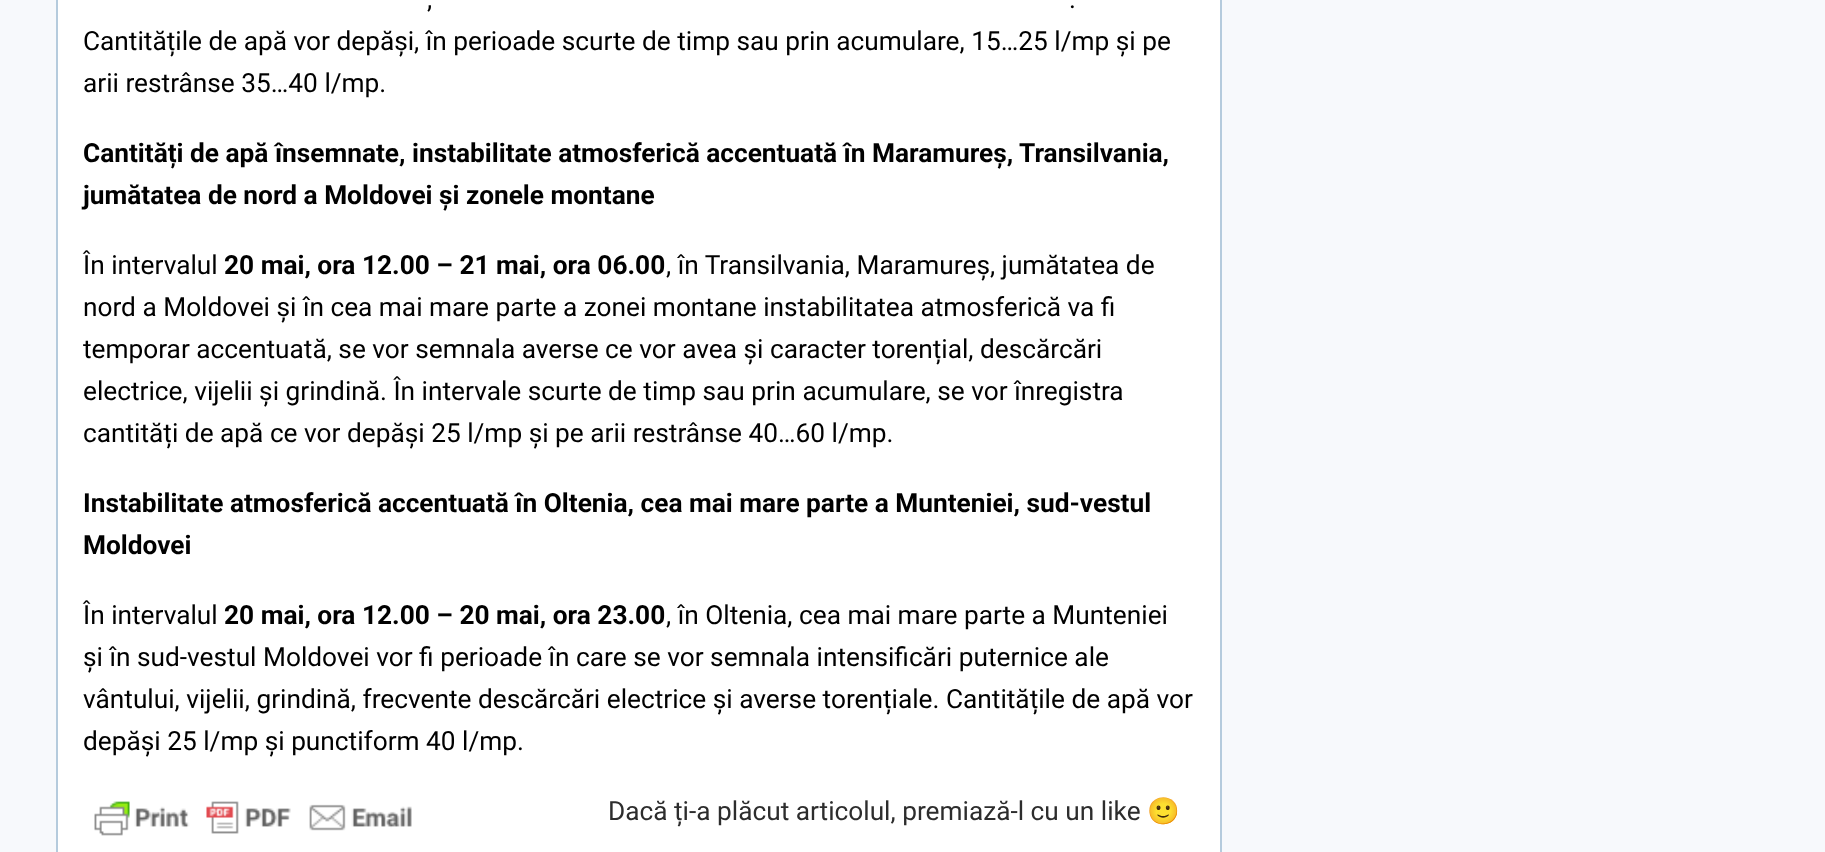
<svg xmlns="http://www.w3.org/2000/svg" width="1825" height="852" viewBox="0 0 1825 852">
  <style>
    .t1 { font: 26.25px Roboto; fill: #000; }
    .t2 { font: bold 26.25px Roboto; fill: #000; }
    .t3 { font: 26.25px Roboto; fill: #2d2d2d; }
    .t4 { font: 26.25px Noto Color Emoji; fill: #2d2d2d; }
  </style>
  <rect width="100%" height="100%" fill="#f7f9fc"/>
  <rect x="57" y="-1" width="1164" height="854" fill="#fff" stroke="#b5cbdd" stroke-width="2"/>
  <text x="427" y="8" class="t1">,</text>
  <text x="1069" y="8" class="t1">.</text>
  <text x="83" y="50" class="t1">Cantitățile de apă vor depăși, în perioade scurte de timp sau prin acumulare, 15…25 l/mp și pe</text>
  <text x="83" y="92" class="t1">arii restrânse 35…40 l/mp.</text>
  <text x="83" y="162" class="t2">Cantități de apă însemnate, instabilitate atmosferică accentuată în Maramureș, Transilvania,</text>
  <text x="83" y="204" class="t2">jumătatea de nord a Moldovei și zonele montane</text>
  <text x="83" y="274" class="t1">În intervalul</text>
  <text x="224" y="274" class="t2">20 mai, ora 12.00 – 21 mai, ora 06.00</text>
  <text x="666" y="274" class="t1">, în Transilvania, Maramureș, jumătatea de</text>
  <text x="83" y="316" class="t1">nord a Moldovei și în cea mai mare parte a zonei montane instabilitatea atmosferică va fi</text>
  <text x="83" y="358" class="t1">temporar accentuată, se vor semnala averse ce vor avea și caracter torențial, descărcări</text>
  <text x="83" y="400" class="t1">electrice, vijelii și grindină. În intervale scurte de timp sau prin acumulare, se vor înregistra</text>
  <text x="83" y="442" class="t1">cantități de apă ce vor depăși 25 l/mp și pe arii restrânse 40…60 l/mp.</text>
  <text x="83" y="512" class="t2">Instabilitate atmosferică accentuată în Oltenia, cea mai mare parte a Munteniei, sud-vestul</text>
  <text x="83" y="554" class="t2">Moldovei</text>
  <text x="83" y="624" class="t1">În intervalul</text>
  <text x="224" y="624" class="t2">20 mai, ora 12.00 – 20 mai, ora 23.00</text>
  <text x="666" y="624" class="t1">, în Oltenia, cea mai mare parte a Munteniei</text>
  <text x="83" y="666" class="t1">și în sud-vestul Moldovei vor fi perioade în care se vor semnala intensificări puternice ale</text>
  <text x="83" y="708" class="t1">vântului, vijelii, grindină, frecvente descărcări electrice și averse torențiale. Cantitățile de apă vor</text>
  <text x="83" y="750" class="t1">depăși 25 l/mp și punctiform 40 l/mp.</text>
  <image x="94" y="801" width="318" height="35" href="images/1.png"/>
  <text x="608" y="820" class="t3">Dacă ți-a plăcut articolul, premiază-l cu un like</text>
  <text x="1147" y="820" class="t4">🙂</text>
</svg>
